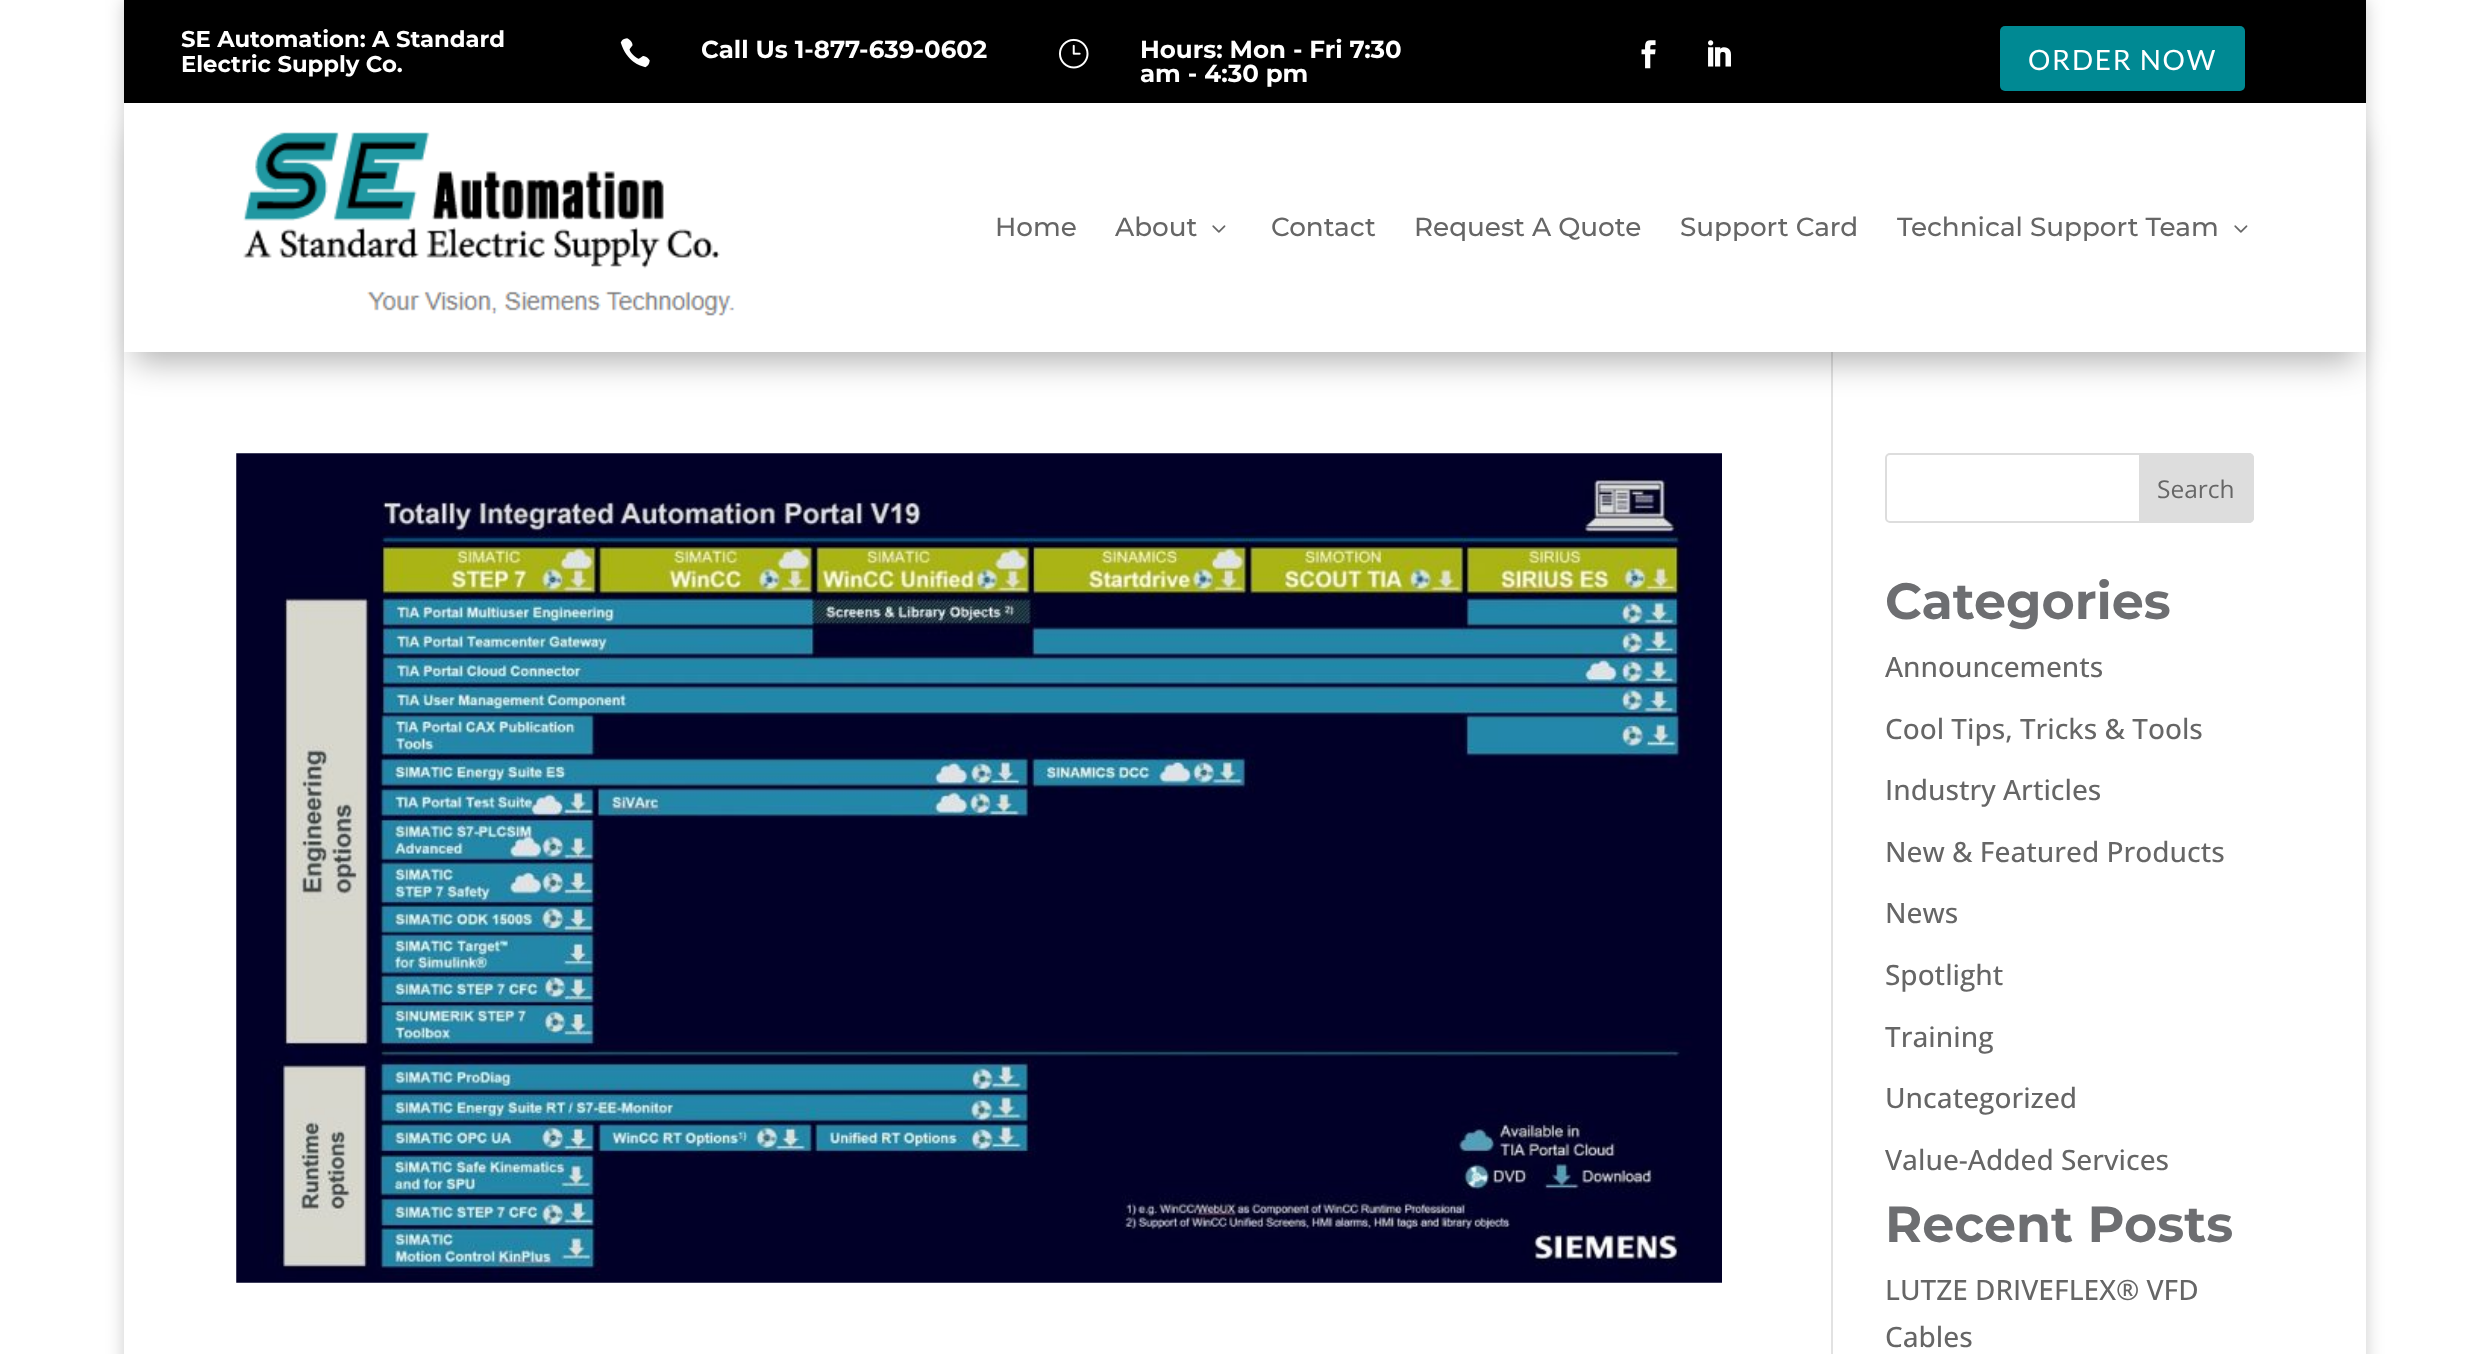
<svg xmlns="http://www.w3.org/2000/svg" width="2489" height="1354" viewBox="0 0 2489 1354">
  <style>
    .t1 { font: bold 22.75px Montserrat; fill: #fff; }
    .t2 { font: bold 24.5px Montserrat; fill: #fff; }
    .t3 { font: 28px Lato; letter-spacing: 1.75px; fill: #fff; }
    .t4 { font: 500 26.25px Montserrat; fill: #666; }
    .t5 { font: 24.5px Open Sans; fill: #666; }
    .t6 { font: bold 50.75px Montserrat; fill: #6d6e71; }
    .t7 { font: 500 28px Open Sans; fill: #666; }
  </style>
  <rect width="100%" height="100%" fill="#fff"/>
  <rect x="124" y="0" width="2242" height="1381" fill="#00000033" filter="blur(9px)"/>
  <rect x="124" y="0" width="2242" height="103" fill="#000"/>
  <text x="181" y="47" class="t1">SE Automation: A Standard</text>
  <text x="181" y="72" class="t1">Electric Supply Co.</text>
  <image x="620" y="38" width="30" height="30" href="images/1.png"/>
  <text x="701" y="58" class="t2">Call Us 1-877-639-0602</text>
  <image x="1059" y="38" width="30" height="31" href="images/2.png"/>
  <text x="1140" y="58" class="t2">Hours: Mon - Fri 7:30</text>
  <text x="1140" y="82" class="t2">am - 4:30 pm</text>
  <image x="1641" y="40" width="15" height="29" href="images/3.png"/>
  <image x="1708" y="40" width="23" height="27" href="images/4.png"/>
  <rect x="2000" y="26" width="245" height="65" rx="5" fill="#008993"/>
  <text x="2028" y="70" class="t3">ORDER NOW</text>
  <rect x="124" y="352" width="2242" height="1002" fill="#fff"/>
  <rect x="1831" y="352" width="2" height="1002" fill="#e2e2e2"/>
  <rect x="135" y="135" width="2221" height="227" fill="#0000004d" filter="blur(16px)"/>
  <rect x="124" y="103" width="2242" height="249" fill="#fff"/>
  <image x="243" y="132" width="492" height="184" href="images/5.png"/>
  <text x="995" y="236" class="t4">Home</text>
  <text x="1115" y="236" class="t4">About</text>
  <image x="1212" y="225" width="14" height="8" href="images/6.png"/>
  <text x="1271" y="236" class="t4">Contact</text>
  <text x="1414" y="236" class="t4">Request A Quote</text>
  <text x="1680" y="236" class="t4">Support Card</text>
  <text x="1897" y="236" class="t4">Technical Support Team</text>
  <image x="2234" y="225" width="14" height="8" href="images/6.png"/>
  <image x="236" y="453" width="1486" height="830" href="images/7.png"/>
  <rect x="1886" y="454" width="367" height="68" rx="4" fill="none" stroke="#ddd" stroke-width="2"/>
  <path d="M2140 454H2249C2251 454 2253 456 2253 458V518C2253 520 2251 522 2249 522H2140Z" fill="#ddd" stroke="#ddd" stroke-width="2"/>
  <text x="2157" y="498" class="t5">Search</text>
  <text x="1885" y="619" class="t6">Categories</text>
  <text x="1885" y="677" class="t7">Announcements</text>
  <text x="1885" y="739" class="t7">Cool Tips, Tricks &amp; Tools</text>
  <text x="1885" y="800" class="t7">Industry Articles</text>
  <text x="1885" y="862" class="t7">New &amp; Featured Products</text>
  <text x="1885" y="923" class="t7">News</text>
  <text x="1885" y="985" class="t7">Spotlight</text>
  <text x="1885" y="1047" class="t7">Training</text>
  <text x="1885" y="1108" class="t7">Uncategorized</text>
  <text x="1885" y="1170" class="t7">Value-Added Services</text>
  <text x="1885" y="1242" class="t6">Recent Posts</text>
  <text x="1885" y="1300" class="t7">LUTZE DRIVEFLEX® VFD</text>
  <text x="1885" y="1347" class="t7">Cables</text>
</svg>
